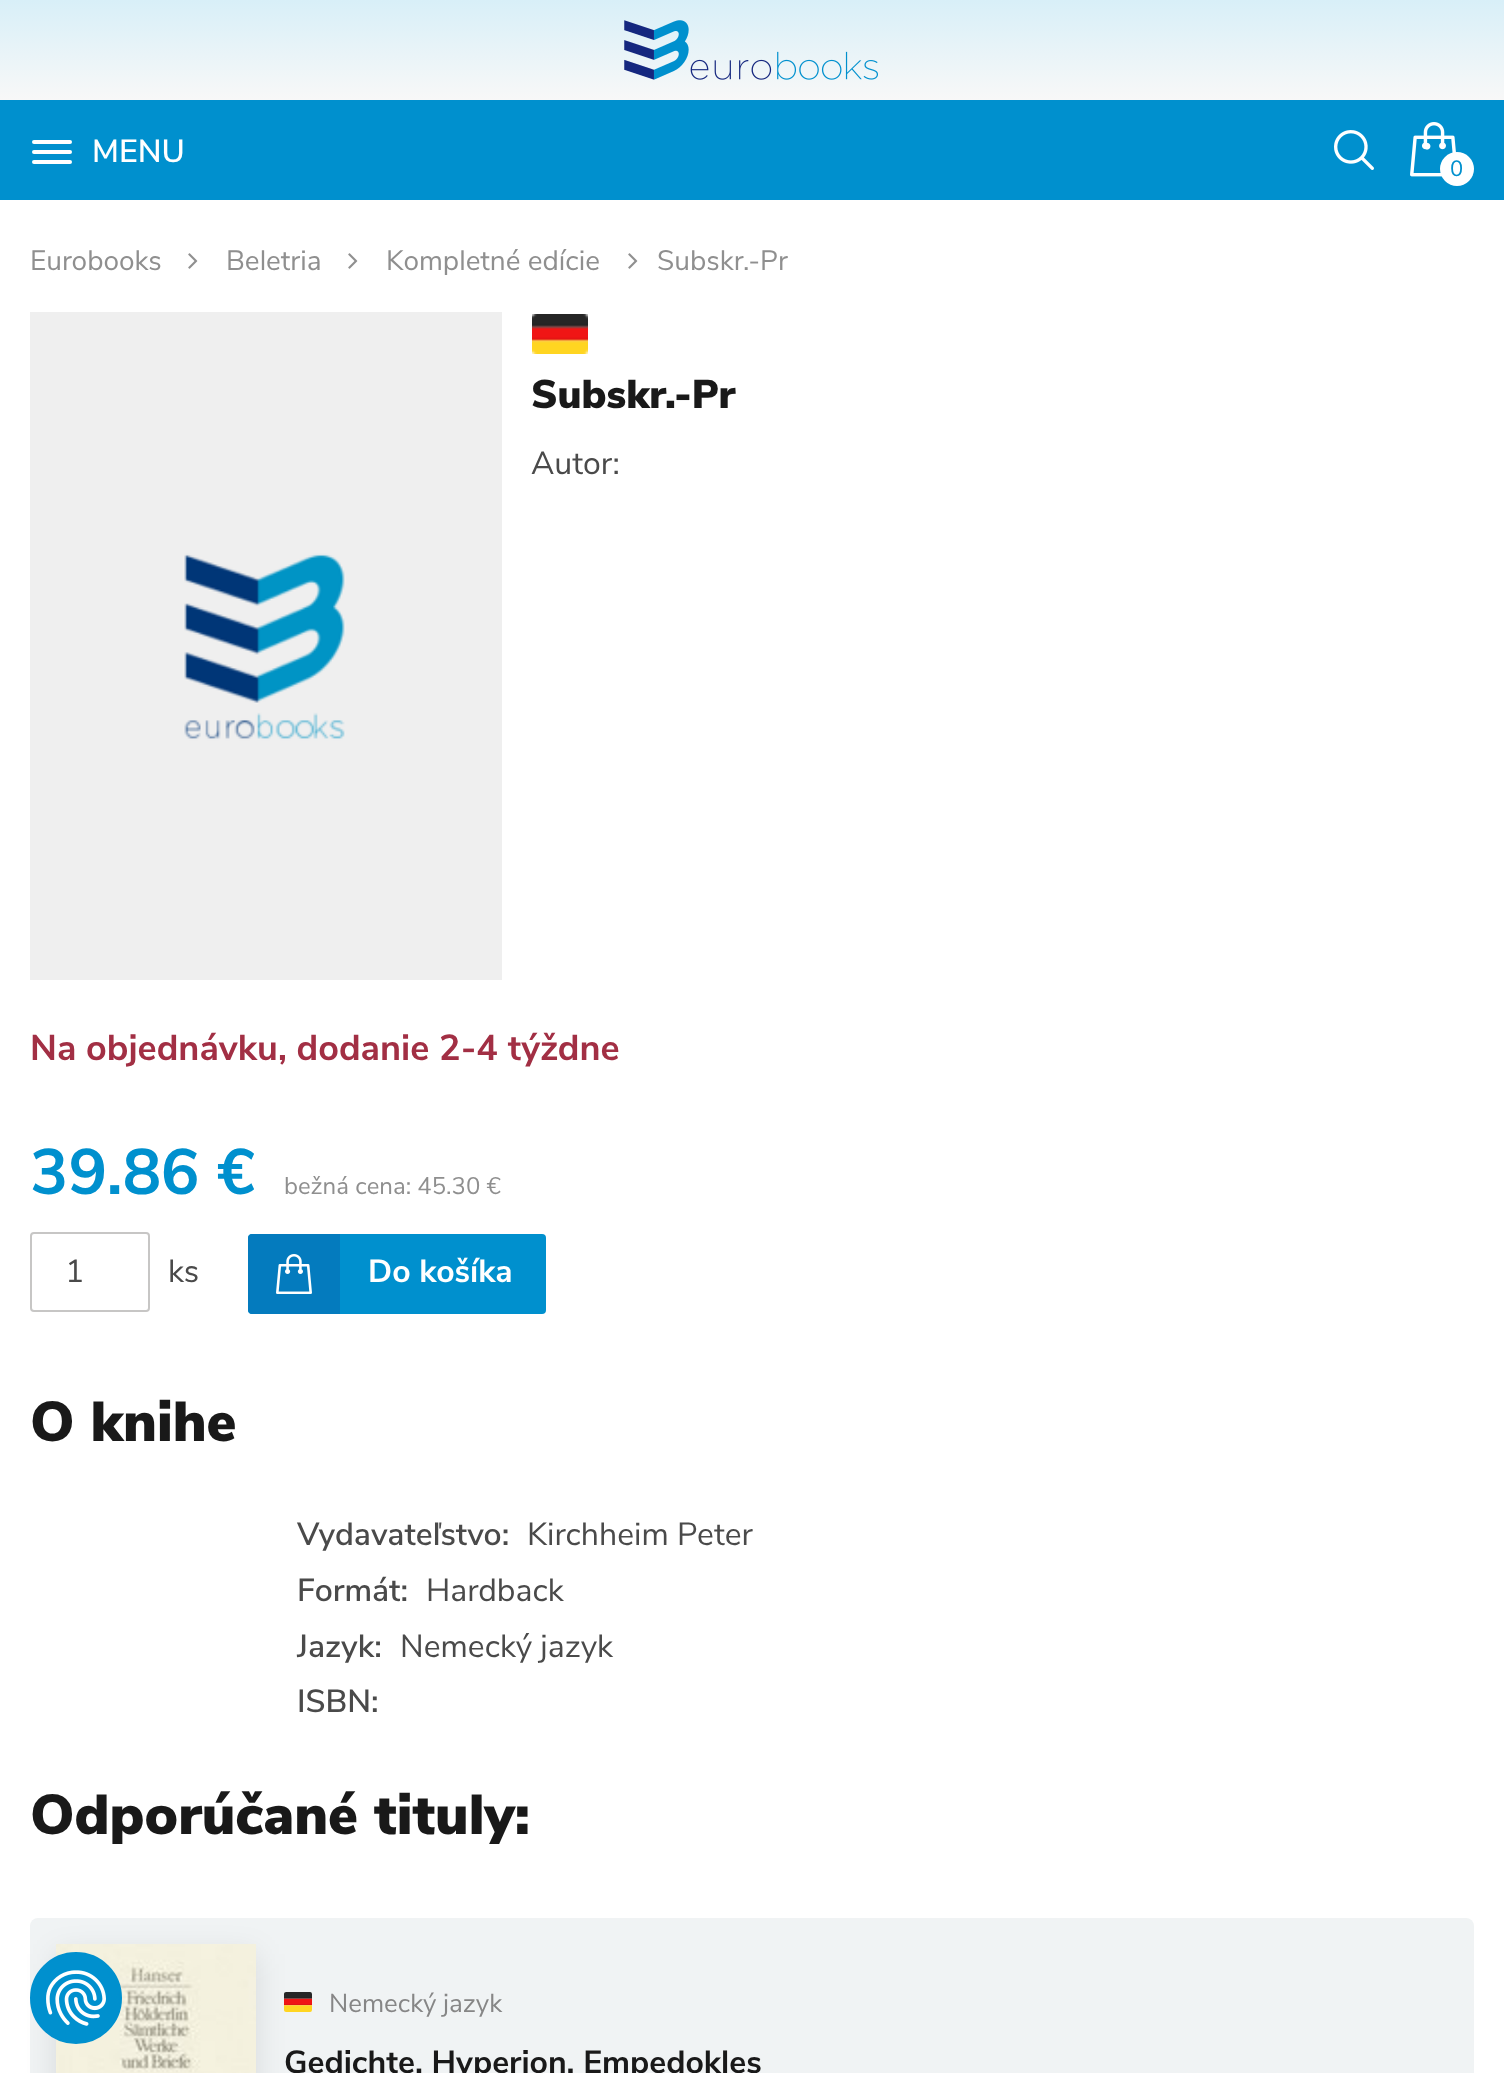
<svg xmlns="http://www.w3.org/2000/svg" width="1504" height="2073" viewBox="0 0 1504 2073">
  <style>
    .t1 { font: 600 32px Nunito Sans; fill: #fff; }
    .t2 { font: 22px Nunito Sans; fill: #0090ce; }
    .t3 { font: 28px Nunito Sans; fill: #8f8f8f; }
    .t4 { font: 900 40px Nunito Sans; fill: #191919; }
    .t5 { font: 32px Nunito Sans; fill: #4a4a4a; }
    .t6 { font: bold 36px Nunito Sans; fill: #a22f44; }
    .t7 { font: bold 64px Nunito Sans; fill: #0090ce; }
    .t8 { font: 24px Nunito Sans; fill: #8f8f8f; }
    .t9 { font: bold 32px Nunito Sans; fill: #fff; }
    .t10 { font: 900 56px Nunito Sans; fill: #191919; }
    .t11 { font: 600 32px Nunito Sans; fill: #4a4a4a; }
    .t12 { font: 26px Nunito Sans; fill: #868686; }
    .t13 { font: bold 32px Nunito Sans; fill: #191919; }
  </style>
  <defs>
    <linearGradient id="g1" gradientUnits="userSpaceOnUse" x1="752" y1="100" x2="752" y2="0"><stop offset="0" stop-color="#f8f8f8"/><stop offset="1" stop-color="#d8eff8"/></linearGradient>
  </defs>
  <rect width="100%" height="100%" fill="#fff"/>
  <rect x="0" y="100" width="1504" height="100" fill="#0090ce"/>
  <rect x="32" y="140" width="40" height="4" rx="2" fill="#fff"/>
  <text x="92" y="162" class="t1">MENU</text>
  <rect x="32" y="150" width="40" height="4" rx="2" fill="#fff"/>
  <rect x="32" y="160" width="40" height="4" rx="2" fill="#fff"/>
  <image x="1334" y="130" width="40" height="40" href="images/1.png"/>
  <rect x="0" y="0" width="1504" height="100" fill="url(#g1)"/>
  <image x="624" y="20" width="254" height="60" href="images/2.png"/>
  <image x="1410" y="122" width="46" height="55" href="images/3.png"/>
  <circle cx="1457" cy="169" r="17" fill="#fff"/>
  <text x="1450" y="176" class="t2">0</text>
  <text x="30" y="270" class="t3">Eurobooks</text>
  <image x="188" y="253" width="10" height="16" href="images/4.png"/>
  <text x="226" y="270" class="t3">Beletria</text>
  <image x="348" y="253" width="10" height="16" href="images/4.png"/>
  <text x="386" y="270" class="t3">Kompletné edície</text>
  <image x="628" y="253" width="10" height="16" href="images/4.png"/>
  <text x="657" y="270" class="t3">Subskr.-Pr</text>
  <image x="30" y="312" width="472" height="668" href="images/5.png"/>
  <image x="532" y="314" width="56" height="40" href="images/6.png"/>
  <text x="531" y="408" class="t4">Subskr.-Pr</text>
  <text x="531" y="474" class="t5">Autor:</text>
  <text x="30" y="1060" class="t6">Na objednávku, dodanie 2-4 týždne</text>
  <text x="30" y="1194" class="t7">39.86 €</text>
  <text x="284" y="1194" class="t8">bežná cena: 45.30 €</text>
  <rect x="31" y="1233" width="118" height="78" rx="3" fill="none" stroke="#c7c6c5" stroke-width="2"/>
  <text x="65" y="1282" class="t5">1</text>
  <text x="168" y="1282" class="t5">ks</text>
  <rect x="248" y="1234" width="298" height="80" rx="4" fill="#0090ce"/>
  <path d="M252 1234H340V1314H252C250 1314 248 1312 248 1310V1238C248 1236 250 1234 252 1234Z" fill="#047bbe"/>
  <image x="276" y="1254" width="36" height="40" href="images/7.png"/>
  <text x="368" y="1282" class="t9">Do košíka</text>
  <text x="30" y="1441" class="t10">O knihe</text>
  <text x="297" y="1545" class="t11">Vydavateľstvo:</text>
  <text x="527" y="1545" class="t5">Kirchheim Peter</text>
  <text x="297" y="1601" class="t11">Formát:</text>
  <text x="426" y="1601" class="t5">Hardback</text>
  <text x="297" y="1657" class="t11">Jazyk:</text>
  <text x="400" y="1657" class="t5">Nemecký jazyk</text>
  <text x="297" y="1712" class="t11">ISBN:</text>
  <text x="30" y="1834" class="t10">Odporúčané tituly:</text>
  <rect x="30" y="1918" width="1444" height="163" rx="8" fill="#f0f3f4"/>
  <rect x="56" y="1954" width="200" height="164" fill="#0000001a" filter="blur(15px)"/>
  <image x="56" y="1944" width="200" height="129" href="images/8.png"/>
  <image x="284" y="1992" width="28" height="20" href="images/9.png"/>
  <text x="329" y="2012" class="t12">Nemecký jazyk</text>
  <text x="284" y="2073" class="t13">Gedichte. Hyperion. Empedokles</text>
  <circle cx="76" cy="1998" r="45" fill="#0090ce" stroke="#0090ce" stroke-width="2"/>
  <image x="46" y="1970" width="60" height="56" href="images/10.png"/>
</svg>
